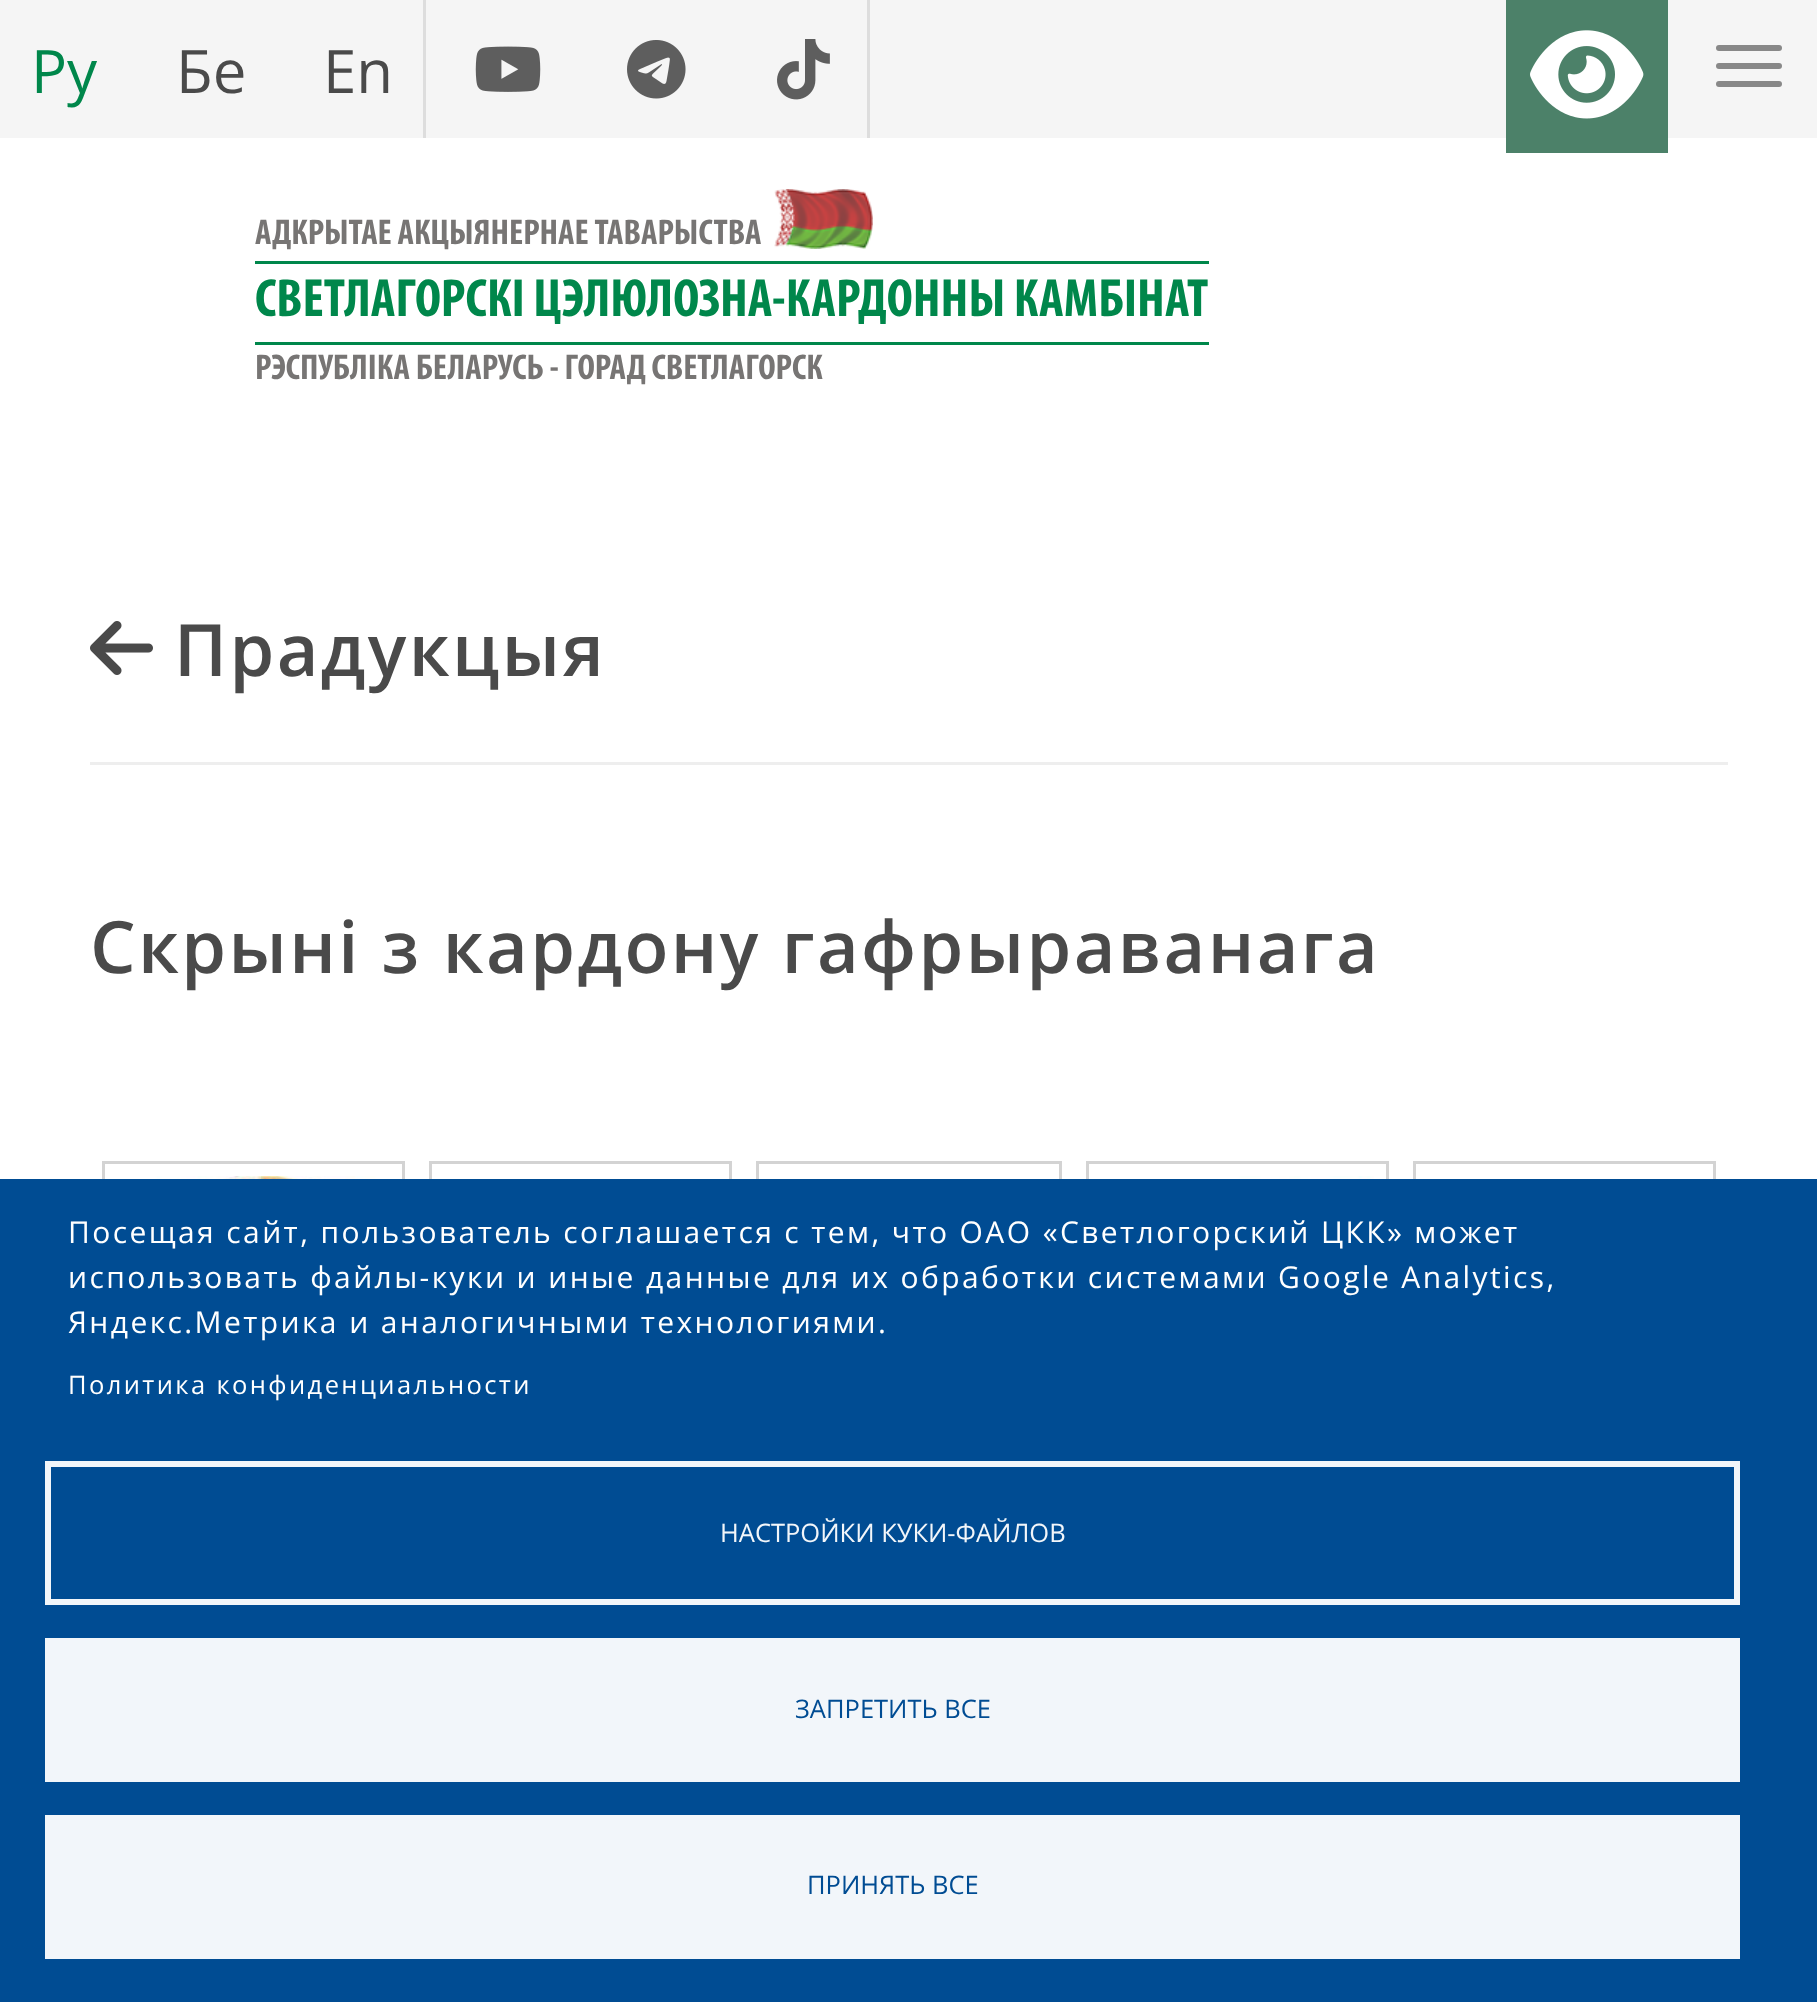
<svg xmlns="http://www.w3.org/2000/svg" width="1817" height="2002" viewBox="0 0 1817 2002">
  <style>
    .t1 { font: 60px Open Sans; fill: #00874b; }
    .t2 { font: 60px Open Sans; fill: #4a4a4a; }
    .t3 { font: bold 36px Myriad; fill: #777574; }
    .t4 { font: bold 54px Myriad; fill: #00874b; }
    .t5 { font: 600 72px Open Sans; letter-spacing: 2.4px; fill: #4a4a4a; }
    .t6 { font: 30px Open Sans; letter-spacing: 2.4px; fill: #fff; }
    .t7 { font: 25.5px Open Sans; letter-spacing: 2.4px; fill: #fff; }
    .t8 { font: 25.5px Open Sans; fill: #f2f6fa; }
    .t9 { font: 25.5px Open Sans; fill: #004c93; }
  </style>
  <rect width="100%" height="100%" fill="#fff"/>
  <rect x="0" y="0" width="1817" height="138" fill="#f5f5f5"/>
  <rect x="423" y="0" width="3" height="138" fill="#ddd"/>
  <text x="31" y="93" class="t1">Ру</text>
  <text x="176" y="93" class="t2">Бе</text>
  <text x="323" y="93" class="t2">En</text>
  <rect x="867" y="0" width="3" height="138" fill="#ddd"/>
  <image x="475" y="46" width="66" height="46" href="images/1.png"/>
  <image x="627" y="40" width="59" height="59" href="images/2.png"/>
  <image x="777" y="39" width="53" height="61" href="images/3.png"/>
  <rect x="1506" y="0" width="162" height="153" fill="#4c8169"/>
  <image x="1530" y="30" width="114" height="89" href="images/4.png"/>
  <rect x="1716" y="45" width="66" height="6" rx="3" fill="#888"/>
  <rect x="1716" y="63" width="66" height="6" rx="3" fill="#888"/>
  <rect x="1716" y="81" width="66" height="6" rx="3" fill="#888"/>
  <text x="255" y="244" class="t3">АДКРЫТАЕ АКЦЫЯНЕРНАЕ ТАВАРЫСТВА</text>
  <image x="774" y="189" width="99" height="60" href="images/5.png"/>
  <rect x="255" y="261" width="954" height="3" fill="#00874b"/>
  <rect x="255" y="342" width="954" height="3" fill="#00874b"/>
  <text x="255" y="316" class="t4">СВЕТЛАГОРСКІ ЦЭЛЮЛОЗНА-КАРДОННЫ КАМБІНАТ</text>
  <text x="255" y="379" class="t3">РЭСПУБЛІКА БЕЛАРУСЬ - ГОРАД СВЕТЛАГОРСК</text>
  <image x="90" y="621" width="63" height="54" href="images/6.png"/>
  <text x="174" y="676" class="t5">Прадукцыя</text>
  <rect x="90" y="762" width="1638" height="3" fill="#eee"/>
  <text x="90" y="973" class="t5">Скрыні з кардону гафрыраванага</text>
  <rect x="103.5" y="1162.5" width="300" height="303" fill="none" stroke="#d3d3d3" stroke-width="3"/>
  <image x="117" y="1176" width="274" height="3" href="images/7.png"/>
  <rect x="430.5" y="1162.5" width="300" height="303" fill="none" stroke="#d3d3d3" stroke-width="3"/>
  <rect x="757.5" y="1162.5" width="303" height="303" fill="none" stroke="#d3d3d3" stroke-width="3"/>
  <rect x="1087.5" y="1162.5" width="300" height="303" fill="none" stroke="#d3d3d3" stroke-width="3"/>
  <image x="1100" y="1176" width="274" height="3" href="images/8.png"/>
  <rect x="1414.5" y="1162.5" width="300" height="303" fill="none" stroke="#d3d3d3" stroke-width="3"/>
  <rect x="0" y="1179" width="1817" height="823" fill="#004c93"/>
  <text x="68" y="1243" class="t6">Посещая сайт, пользователь соглашается с тем, что ОАО «Светлогорский ЦКК» может</text>
  <text x="68" y="1288" class="t6">использовать файлы-куки и иные данные для их обработки системами Google Analytics,</text>
  <text x="68" y="1333" class="t6">Яндекс.Метрика и аналогичными технологиями.</text>
  <text x="68" y="1394" class="t7">Политика конфиденциальности</text>
  <rect x="48" y="1464" width="1689" height="138" fill="none" stroke="#f2f6fa" stroke-width="6"/>
  <text x="720" y="1542" class="t8">НАСТРОЙКИ КУКИ-ФАЙЛОВ</text>
  <rect x="45" y="1638" width="1695" height="144" fill="#f2f6fa"/>
  <text x="795" y="1718" class="t9">ЗАПРЕТИТЬ ВСЕ</text>
  <rect x="45" y="1815" width="1695" height="144" fill="#f2f6fa"/>
  <text x="807" y="1894" class="t9">ПРИНЯТЬ ВСЕ</text>
</svg>
